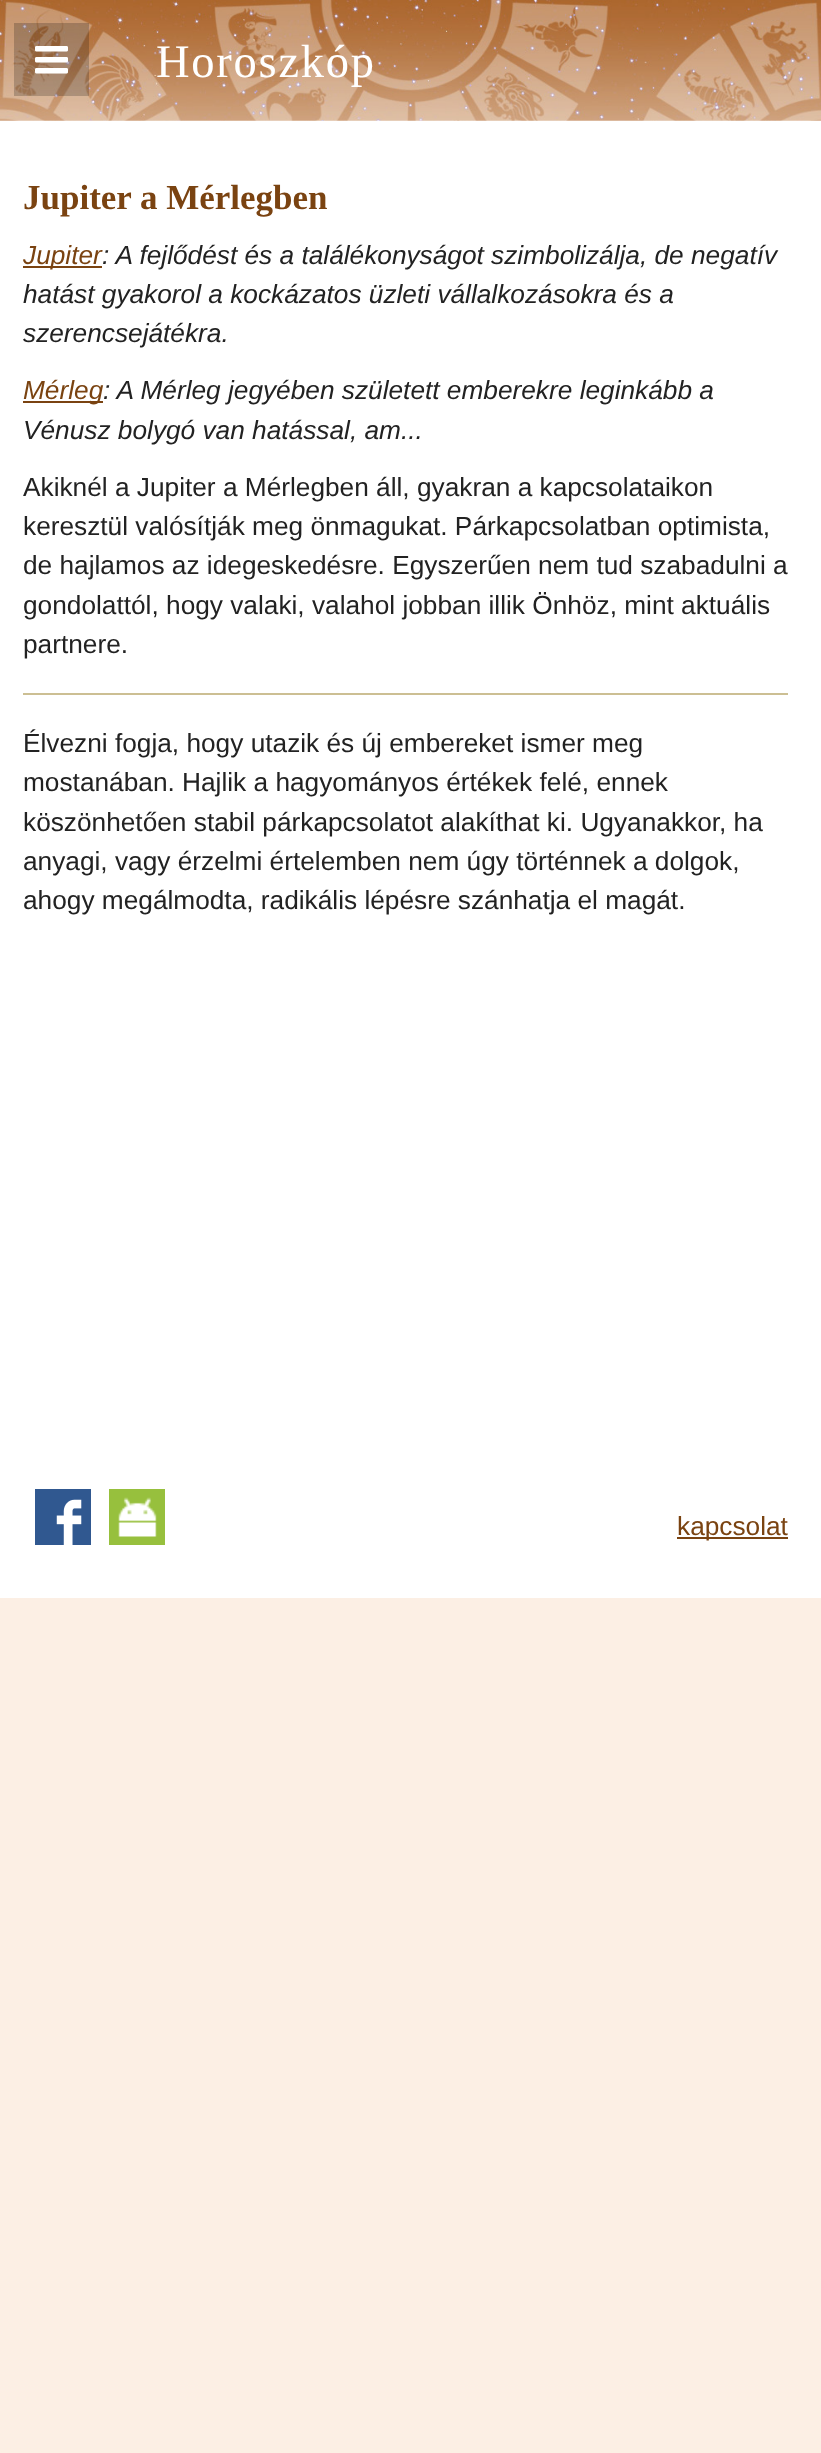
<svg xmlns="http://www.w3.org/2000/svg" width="821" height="2453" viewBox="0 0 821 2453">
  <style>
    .t1 { font: 46.5px Liberation Serif; letter-spacing: 1.75px; fill: #fff; }
    .t2 { font: bold 35px Liberation Serif; fill: #7a4311; }
    .t3 { font: italic 26.25px Liberation Sans; fill: #7a4311; }
    .t4 { font: italic 26.25px Liberation Sans; fill: #222; }
    .t5 { font: 26.25px Liberation Sans; fill: #222; }
    .t6 { font: 26.25px Liberation Sans; fill: #7a4311; }
  </style>
  <rect width="100%" height="100%" fill="#fcefe4"/>
  <rect x="0" y="120" width="821" height="1478" fill="#fff"/>
  <image x="0" y="0" width="821" height="121" href="images/1.png"/>
  <rect x="14" y="23" width="75" height="73" fill="#00000033"/>
  <image x="35" y="46" width="33" height="28" href="images/2.png"/>
  <text x="156" y="77" class="t1">Horoszkóp</text>
  <text x="23" y="209" class="t2">Jupiter a Mérlegben</text>
  <rect x="23" y="266" width="79" height="2" fill="#7a4311"/>
  <text x="23" y="264" class="t3">Jupiter</text>
  <text x="102" y="264" class="t4">: A fejlődést és a találékonyságot szimbolizálja, de negatív</text>
  <text x="23" y="303" class="t4">hatást gyakorol a kockázatos üzleti vállalkozásokra és a</text>
  <text x="23" y="342" class="t4">szerencsejátékra.</text>
  <rect x="23" y="401" width="80" height="2" fill="#7a4311"/>
  <text x="23" y="399" class="t3">Mérleg</text>
  <text x="103" y="399" class="t4">: A Mérleg jegyében született emberekre leginkább a</text>
  <text x="23" y="439" class="t4">Vénusz bolygó van hatással, am...</text>
  <text x="23" y="496" class="t5">Akiknél a Jupiter a Mérlegben áll, gyakran a kapcsolataikon</text>
  <text x="23" y="535" class="t5">keresztül valósítják meg önmagukat. Párkapcsolatban optimista,</text>
  <text x="23" y="574" class="t5">de hajlamos az idegeskedésre. Egyszerűen nem tud szabadulni a</text>
  <text x="23" y="614" class="t5">gondolattól, hogy valaki, valahol jobban illik Önhöz, mint aktuális</text>
  <text x="23" y="653" class="t5">partnere.</text>
  <rect x="23" y="693" width="765" height="2" fill="#ccbf93"/>
  <text x="23" y="752" class="t5">Élvezni fogja, hogy utazik és új embereket ismer meg</text>
  <text x="23" y="791" class="t5">mostanában. Hajlik a hagyományos értékek felé, ennek</text>
  <text x="23" y="831" class="t5">köszönhetően stabil párkapcsolatot alakíthat ki. Ugyanakkor, ha</text>
  <text x="23" y="870" class="t5">anyagi, vagy érzelmi értelemben nem úgy történnek a dolgok,</text>
  <text x="23" y="909" class="t5">ahogy megálmodta, radikális lépésre szánhatja el magát.</text>
  <rect x="35" y="1489" width="56" height="56" fill="#305890"/>
  <image x="56" y="1499" width="26" height="46" href="images/3.png"/>
  <rect x="109" y="1489" width="56" height="56" fill="#97c03d"/>
  <image x="118" y="1497" width="39" height="40" href="images/4.png"/>
  <rect x="677" y="1537" width="111" height="2" fill="#7a4311"/>
  <text x="677" y="1535" class="t6">kapcsolat</text>
</svg>
